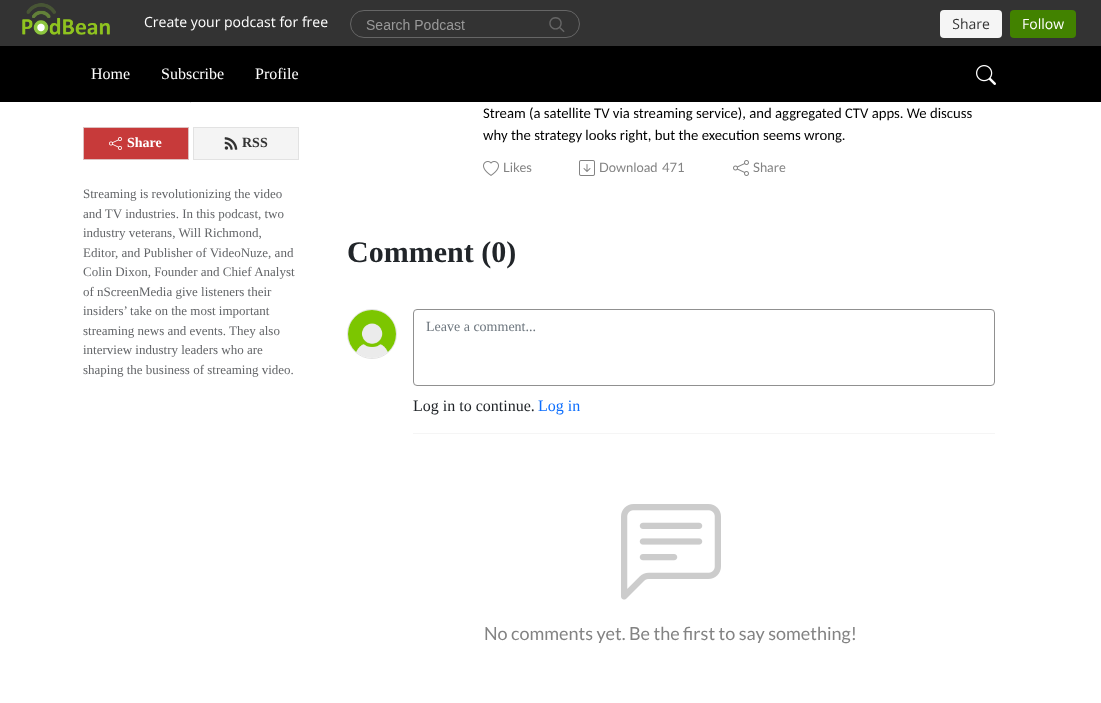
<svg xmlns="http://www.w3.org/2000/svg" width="1101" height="703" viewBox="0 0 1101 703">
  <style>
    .t1 { font: 16px Liberation Serif; fill: #fff; }
    .t2 { font: bold 14px Liberation Serif; fill: #fff; }
    .t3 { font: bold 14px Liberation Serif; fill: #333; }
    .t4 { font: 13px Liberation Serif; fill: #646669; }
    .t5 { font: 14.7px Carlito; fill: #000; }
    .t6 { font: 13px Lato; fill: #838383; }
    .t7 { font: bold 30px Liberation Serif; fill: #212529; }
    .t8 { font: 14px Liberation Serif; fill: #6c757d; }
    .t9 { font: 16px Liberation Serif; fill: #212529; }
    .t10 { font: 16px Liberation Serif; fill: #0d6efd; }
    .t11 { font: 18px Lato; fill: #838383; }
  </style>
  <rect width="100%" height="100%" fill="#fff"/>
  <rect x="0" y="0" width="1101" height="46" fill="#333"/>
  <image x="22" y="3" width="1054" height="35" href="images/1.png"/>
  <rect x="0" y="46" width="1101" height="56" fill="#000"/>
  <text x="91" y="79" class="t1">Home</text>
  <text x="161" y="79" class="t1">Subscribe</text>
  <text x="255" y="79" class="t1">Profile</text>
  <image x="976" y="65" width="20" height="20" href="images/2.png"/>
  <rect x="190" y="102" width="1" height="1" fill="#e6e6e6"/>
  <rect x="83.5" y="127.5" width="105" height="32" fill="#c73a3a" stroke="#ddc0c0"/>
  <image x="109" y="137" width="13" height="13" href="images/3.png"/>
  <text x="127" y="147" class="t2">Share</text>
  <rect x="193.5" y="127.5" width="105" height="32" fill="#f4f4f4" stroke="#e2e2e2"/>
  <image x="224" y="137" width="14" height="13" href="images/4.png"/>
  <text x="242" y="147" class="t3">RSS</text>
  <text x="83" y="198" class="t4">Streaming is revolutionizing the video</text>
  <text x="83" y="218" class="t4">and TV industries. In this podcast, two</text>
  <text x="83" y="237" class="t4">industry veterans, Will Richmond,</text>
  <text x="83" y="257" class="t4">Editor, and Publisher of VideoNuze, and</text>
  <text x="83" y="276" class="t4">Colin Dixon, Founder and Chief Analyst</text>
  <text x="83" y="296" class="t4">of nScreenMedia give listeners their</text>
  <text x="83" y="315" class="t4">insiders’ take on the most important</text>
  <text x="83" y="335" class="t4">streaming news and events. They also</text>
  <text x="83" y="354" class="t4">interview industry leaders who are</text>
  <text x="83" y="374" class="t4">shaping the business of streaming video.</text>
  <text x="483" y="118" class="t5">Stream (a satellite TV via streaming service), and aggregated CTV apps. We discuss</text>
  <text x="483" y="140" class="t5">why the strategy looks right, but the execution seems wrong.</text>
  <image x="483" y="161" width="16" height="15" href="images/5.png"/>
  <text x="503" y="172" class="t6">Likes</text>
  <image x="579" y="160" width="16" height="16" href="images/6.png"/>
  <text x="599" y="172" class="t6">Download</text>
  <text x="662" y="172" class="t6">471</text>
  <image x="733" y="160" width="16" height="16" href="images/7.png"/>
  <text x="753" y="172" class="t6">Share</text>
  <text x="347" y="262" class="t7">Comment (0)</text>
  <circle cx="372" cy="334" r="24.5" fill="none" stroke="#e3e3e3"/>
  <image x="348" y="310" width="48" height="48" href="images/8.png"/>
  <rect x="413" y="433" width="582" height="1" fill="#f5f5f5"/>
  <rect x="413.5" y="309.5" width="581" height="76" rx="3.5" fill="none" stroke="#909090"/>
  <text x="426" y="331" class="t8">Leave a comment...</text>
  <text x="413" y="411" class="t9">Log in to continue.</text>
  <text x="538" y="411" class="t10">Log in</text>
  <image x="621" y="504" width="100" height="96" href="images/9.png"/>
  <text x="484" y="640" class="t11">No comments yet. Be the first to say something!</text>
</svg>
